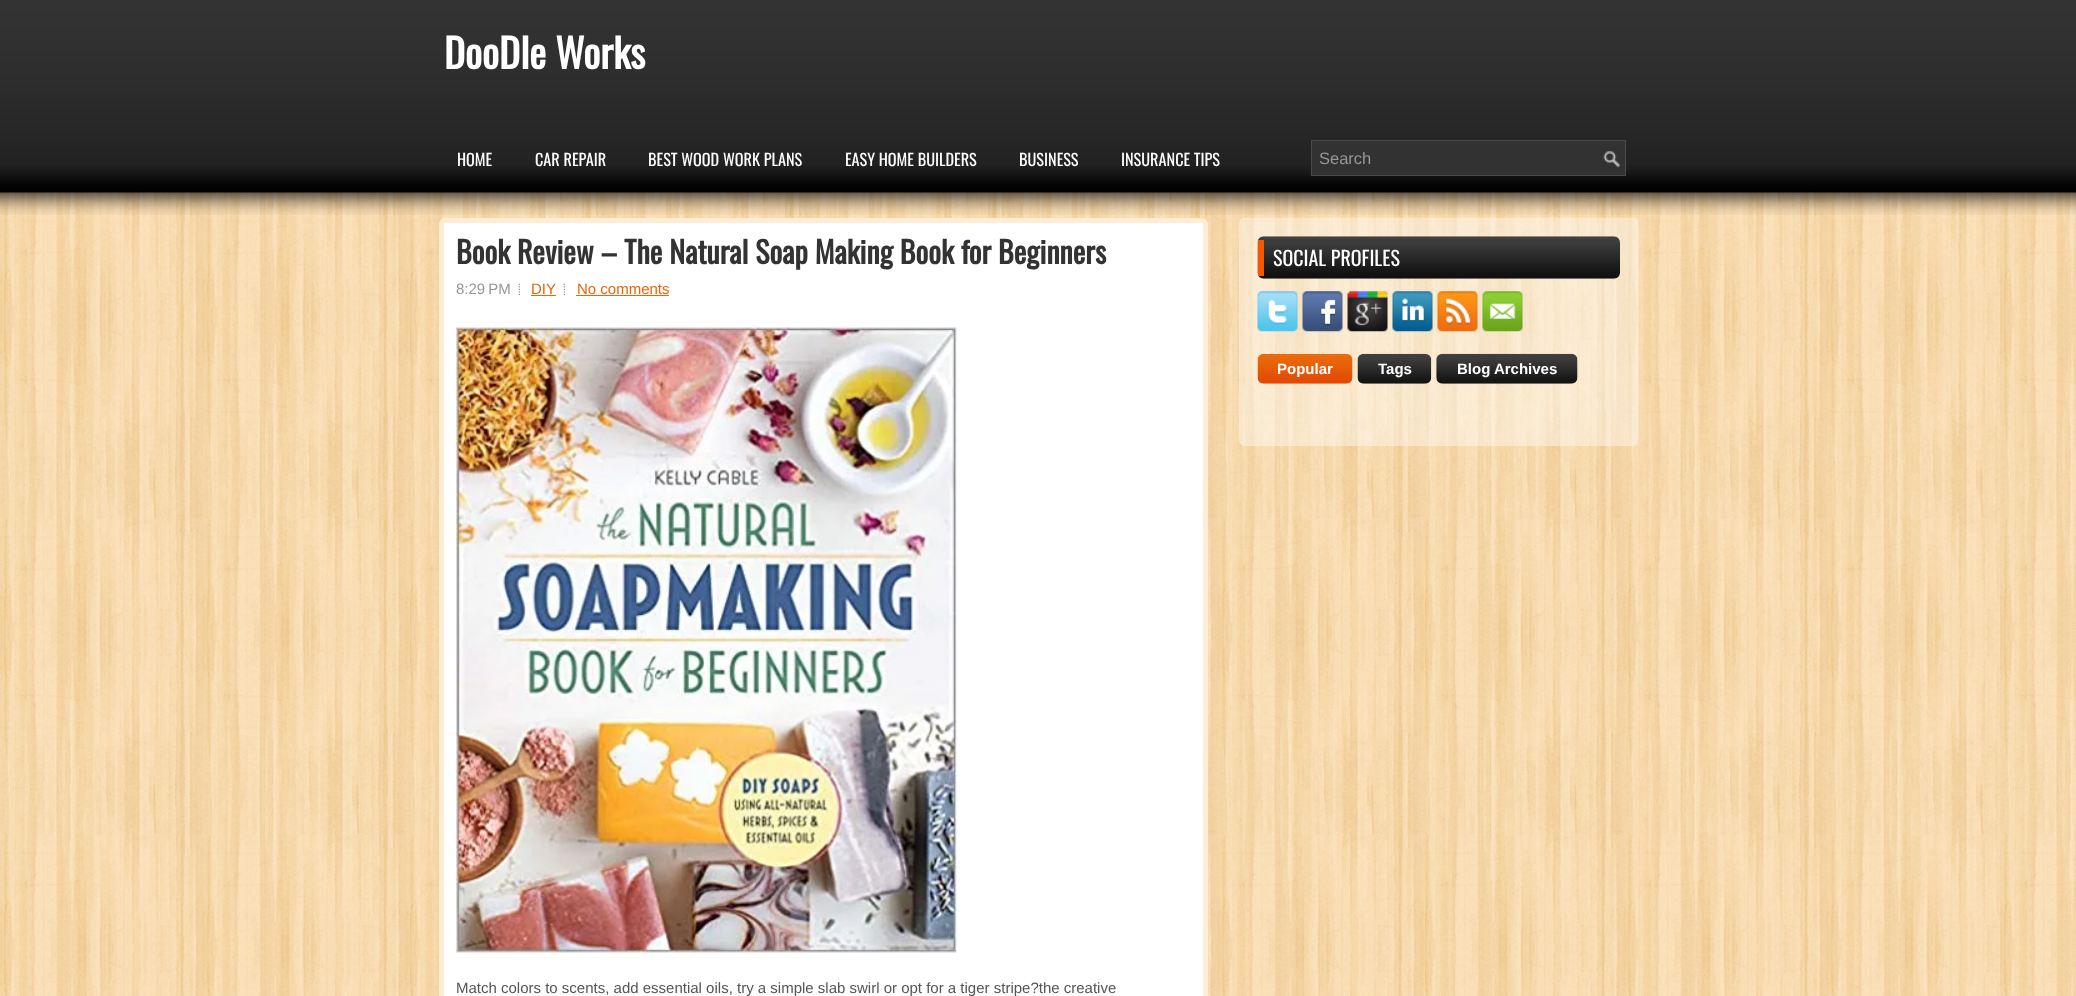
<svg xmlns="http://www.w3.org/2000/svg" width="2076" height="996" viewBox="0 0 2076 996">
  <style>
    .t1 { font: bold 40px Oswald; fill: #fff; }
    .t2 { font: 16.25px Oswald; fill: #fff; }
    .t3 { font: 16.5px Liberation Sans; fill: #979797; }
    .t4 { font: bold 30px Oswald; fill: #333; }
    .t5 { font: 15px Liberation Sans; fill: #979797; }
    .t6 { font: 15px Liberation Sans; fill: #e9650b; }
    .t7 { font: 15px Liberation Sans; fill: #555; }
    .t8 { font: 20px Oswald; fill: #fff; }
    .t9 { font: bold 15px Liberation Sans; fill: #fff; }
  </style>
  <rect width="100%" height="100%" fill="#fff"/>
  <image x="0" y="192" width="2076" height="804" href="images/1.png"/>
  <image x="0" y="0" width="2076" height="215" href="images/2.png"/>
  <text x="444" y="69" class="t1">DooDle Works</text>
  <text x="457" y="166" class="t2">HOME</text>
  <text x="535" y="166" class="t2">CAR REPAIR</text>
  <text x="648" y="166" class="t2">BEST WOOD WORK PLANS</text>
  <text x="845" y="166" class="t2">EASY HOME BUILDERS</text>
  <text x="1019" y="166" class="t2">BUSINESS</text>
  <text x="1121" y="166" class="t2">INSURANCE TIPS</text>
  <rect x="1312" y="141" width="313" height="34" fill="#323232"/>
  <image x="1603" y="151" width="18" height="17" href="images/3.png"/>
  <rect x="1311.5" y="140.5" width="314" height="35" fill="none" stroke="#4a4a4a"/>
  <text x="1319" y="164" class="t3">Search</text>
  <rect x="441.5" y="220.5" width="764" height="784" rx="3.5" fill="#fff" stroke="#feedd5" stroke-width="5"/>
  <text x="456" y="264" class="t4">Book Review – The Natural Soap Making Book for Beginners</text>
  <text x="456" y="294" class="t5">8:29 PM</text>
  <image x="518" y="283" width="2" height="12" href="images/4.png"/>
  <text x="531" y="294" class="t6">DIY</text>
  <rect x="531" y="295" width="25" height="1" fill="#e9650b"/>
  <image x="563" y="283" width="2" height="12" href="images/4.png"/>
  <text x="577" y="294" class="t6">No comments</text>
  <rect x="576" y="295" width="93" height="1" fill="#e9650b"/>
  <image x="456" y="327" width="501" height="626" href="images/5.png"/>
  <text x="456" y="993" class="t7">Match colors to scents, add essential oils, try a simple slab swirl or opt for a tiger stripe?the creative</text>
  <image x="1239" y="217" width="400" height="229" href="images/6.png"/>
  <image x="1257" y="236" width="363" height="43" href="images/7.png"/>
  <rect x="1258" y="240" width="6" height="36" fill="#f65800"/>
  <text x="1273" y="266" class="t8">SOCIAL PROFILES</text>
  <image x="1257" y="291" width="41" height="41" href="images/8.png"/>
  <image x="1302" y="291" width="41" height="41" href="images/9.png"/>
  <image x="1347" y="291" width="41" height="41" href="images/10.png"/>
  <image x="1392" y="291" width="41" height="41" href="images/11.png"/>
  <image x="1437" y="291" width="41" height="41" href="images/12.png"/>
  <image x="1482" y="291" width="41" height="41" href="images/13.png"/>
  <image x="1257" y="354" width="96" height="30" href="images/14.png"/>
  <text x="1277" y="374" class="t9">Popular</text>
  <image x="1357" y="353" width="75" height="31" href="images/15.png"/>
  <text x="1378" y="374" class="t9">Tags</text>
  <image x="1436" y="353" width="142" height="31" href="images/16.png"/>
  <text x="1457" y="374" class="t9">Blog Archives</text>
</svg>
